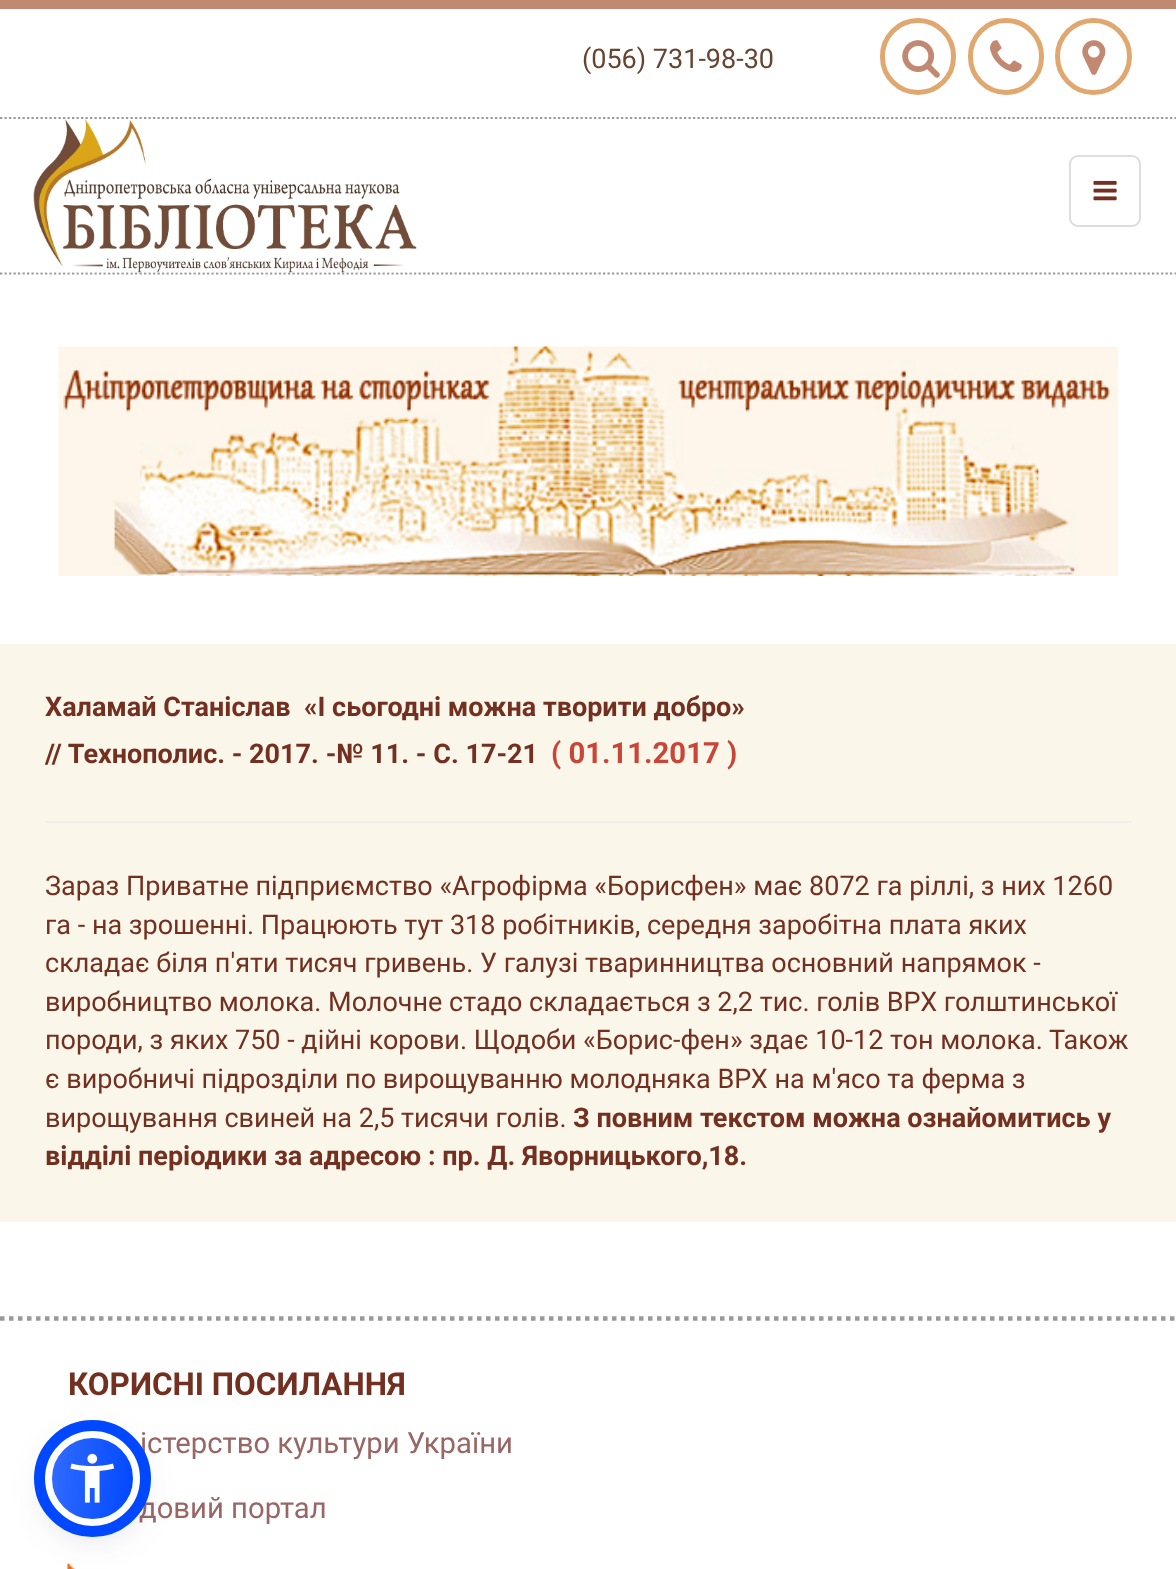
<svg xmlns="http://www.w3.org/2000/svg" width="1176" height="1569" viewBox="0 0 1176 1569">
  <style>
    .t1 { font: 27px Roboto; fill: #654430; }
    .t2 { font: bold 27px Roboto; fill: #733020; }
    .t3 { font: bold 29.25px Roboto; fill: #c84537; }
    .t4 { font: 27px Roboto; fill: #733020; }
    .t5 { font: bold 31.5px Roboto; fill: #733020; }
    .t6 { font: 29.25px Roboto; fill: #966; }
  </style>
  <defs>
    <clipPath id="clip1"><rect x="45" y="1431" width="95" height="95" rx="47.5"/></clipPath>
    <linearGradient id="g1" gradientUnits="userSpaceOnUse" x1="48" y1="1474" x2="137" y2="1483"><stop offset="0" stop-color="#326cff"/><stop offset="1" stop-color="#0048ff"/></linearGradient>
  </defs>
  <rect width="100%" height="100%" fill="#fff"/>
  <rect x="0" y="0" width="1176" height="9" fill="#c18972"/>
  <text x="582" y="68" class="t1">(056) 731-98-30</text>
  <rect x="882.5" y="20.5" width="71" height="72" rx="35.5" fill="none" stroke="#e0a86f" stroke-width="5"/>
  <image x="902" y="40" width="38" height="38" href="images/1.png"/>
  <rect x="970.5" y="20.5" width="71" height="72" rx="35.5" fill="none" stroke="#e0a86f" stroke-width="5"/>
  <image x="990" y="40" width="32" height="32" href="images/2.png"/>
  <circle cx="1093.5" cy="56.5" r="36" fill="none" stroke="#e0a86f" stroke-width="5"/>
  <image x="1082" y="40" width="24" height="35" href="images/3.png"/>
  <path d="M0 118H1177" fill="none" stroke="#999" stroke-width="2.2" stroke-dasharray="2.25 2.25"/>
  <path d="M0 273.5H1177" fill="none" stroke="#999" stroke-width="2.2" stroke-dasharray="2.25 2.25"/>
  <image x="33" y="119" width="384" height="154" href="images/4.png"/>
  <rect x="1070" y="156" width="70" height="70" rx="8" fill="none" stroke="#ddd" stroke-width="2"/>
  <image x="1093" y="180" width="24" height="21" href="images/5.png"/>
  <image x="58" y="346" width="1061" height="230" href="images/6.png"/>
  <rect x="0" y="644" width="1176" height="578" fill="#fbf6ea"/>
  <text x="45" y="716" class="t2">Халамай Станіслав</text>
  <text x="304" y="716" class="t2">«І сьогодні можна творити добро»</text>
  <text x="45" y="763" class="t2">// Технополис. - 2017. -№ 11. - С. 17-21</text>
  <text x="551" y="763" class="t3">( 01.11.2017 )</text>
  <rect x="45" y="821" width="1087" height="2" fill="#efefef"/>
  <text x="45" y="895" class="t4">Зараз Приватне підприємство «Агрофірма «Борисфен» має 8072 га ріллі, з них 1260</text>
  <text x="45" y="934" class="t4">га - на зрошенні. Працюють тут 318 робітників, середня заробітна плата яких</text>
  <text x="45" y="972" class="t4">складає біля п'яти тисяч гривень. У галузі тваринництва основний напрямок -</text>
  <text x="45" y="1011" class="t4">виробництво молока. Молочне стадо складається з 2,2 тис. голів ВРХ голштинської</text>
  <text x="45" y="1049" class="t4">породи, з яких 750 - дійні корови. Щодоби «Борис-фен» здає 10-12 тон молока. Також</text>
  <text x="45" y="1088" class="t4">є виробничі підрозділи по вирощуванню молодняка ВРХ на м'ясо та ферма з</text>
  <text x="45" y="1127" class="t4">вирощування свиней на 2,5 тисячи голів.</text>
  <text x="573" y="1127" class="t2">З повним текстом можна ознайомитись у</text>
  <text x="45" y="1165" class="t2">відділі періодики за адресою : пр. Д. Яворницького,18.</text>
  <path d="M0 1318.5H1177" fill="none" stroke="#999" stroke-width="4.5" stroke-dasharray="4.5 4.5"/>
  <text x="68" y="1395" class="t5">КОРИСНІ ПОСИЛАННЯ</text>
  <image x="67" y="1436" width="4" height="3" href="images/7.png"/>
  <text x="140" y="1453" class="t6">істерство культури України</text>
  <text x="139" y="1518" class="t6">довий портал</text>
  <image x="67" y="1563" width="8" height="6" href="images/8.png"/>
  <rect x="45" y="1436" width="95" height="94" rx="47" fill="#5d649433" filter="blur(4.5px)"/>
  <rect x="45" y="1442" width="95" height="95" rx="47.5" fill="#252c6126" filter="blur(17px)"/>
  <g clip-path="url(#clip1)">
    <rect x="52" y="1438" width="81" height="81" fill="url(#g1)"/>
  </g>
  <circle cx="92.5" cy="1478.5" r="44" fill="none" stroke="#fff" stroke-width="7"/>
  <circle cx="92.5" cy="1478.5" r="53" fill="none" stroke="#0048ff" stroke-width="11"/>
  <image x="70" y="1453" width="45" height="50" href="images/9.png"/>
</svg>
